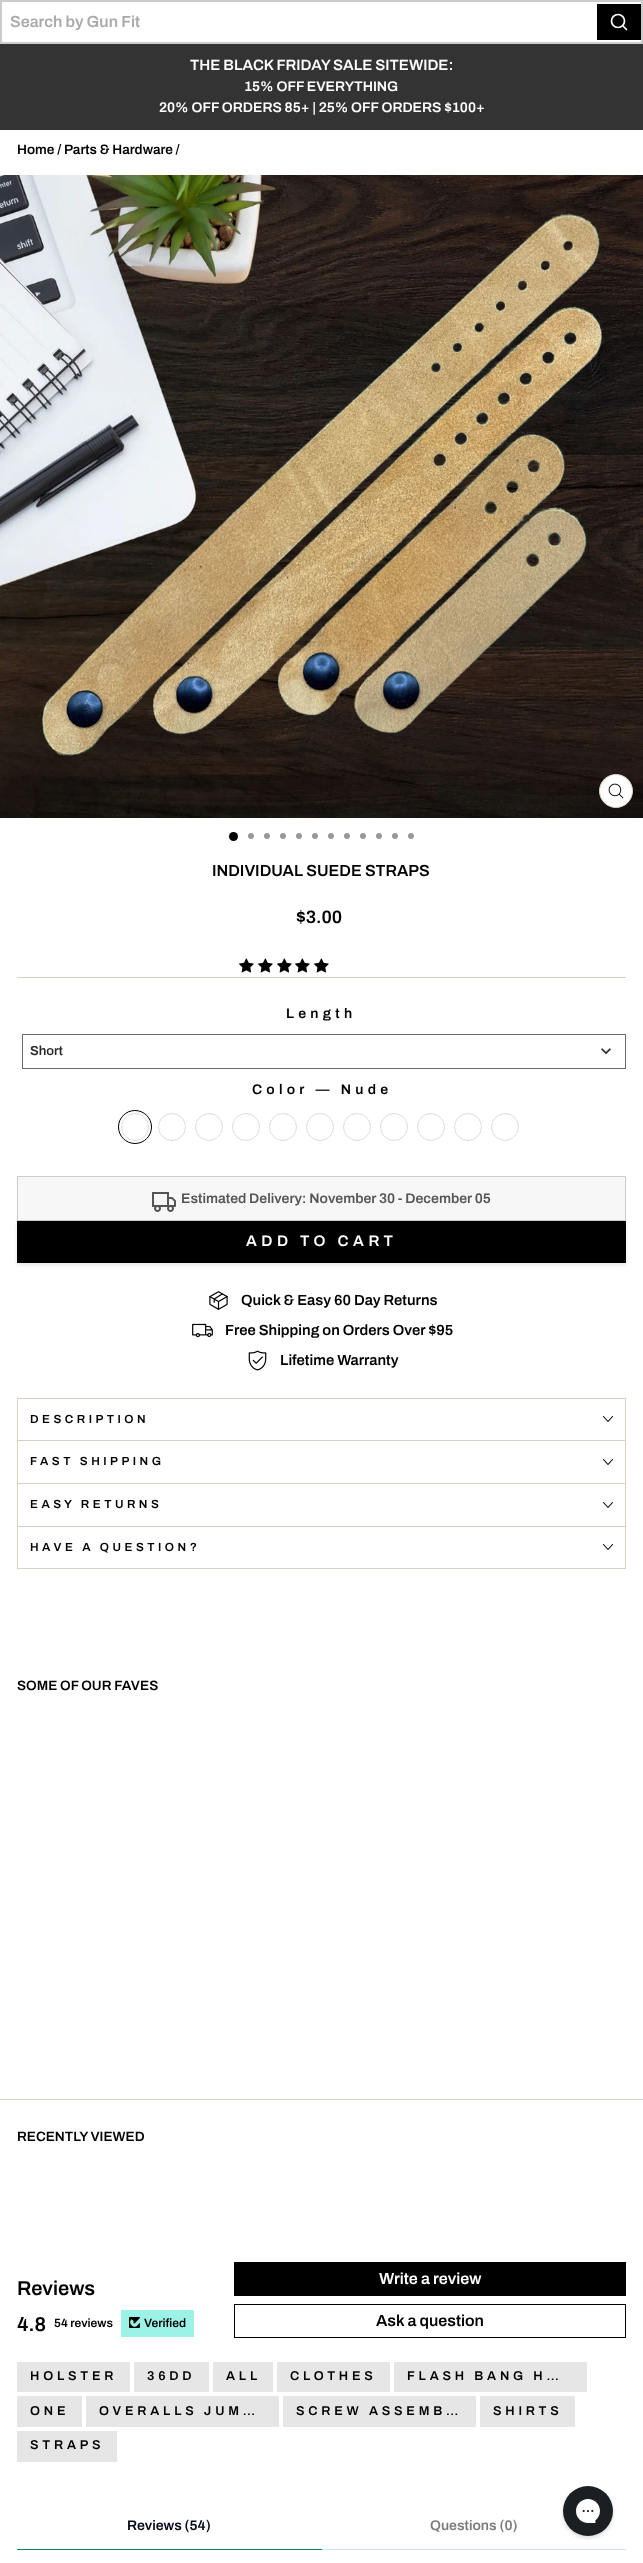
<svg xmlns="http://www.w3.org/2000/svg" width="643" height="2563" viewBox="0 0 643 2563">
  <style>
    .t1 { font: 600 16px Archivo; fill: #aaa; }
    .t2 { font: 600 15px Archivo; fill: #fff; }
    .t3 { font: 600 14px Archivo; fill: #fff; }
    .t4 { font: 600 13.6px Archivo; fill: #000; }
    .t5 { font: 600 16px Archivo; fill: #000; }
    .t6 { font: 600 18px Archivo; fill: #000; }
    .t7 { font: 600 14px Archivo; letter-spacing: 4.25px; fill: #000; }
    .t8 { font: 600 13px Archivo; fill: #292929; }
    .t9 { font: 600 14px Archivo; fill: #555; }
    .t10 { font: 600 15.25px Archivo; letter-spacing: 4.5px; fill: #fff; }
    .t11 { font: 600 14.75px Archivo; fill: #000; }
    .t12 { font: 600 11.75px Archivo; letter-spacing: 3.5px; fill: #000; }
    .t13 { font: 600 20px Archivo; fill: #000; }
    .t14 { font: 600 12px Archivo; fill: #000; }
    .t15 { font: 600 16px Archivo; fill: #fff; }
    .t16 { font: 600 12.75px Archivo; letter-spacing: 3.8px; fill: #000; }
    .t17 { font: 600 14px Archivo; fill: #020617; }
    .t18 { font: 600 14px Archivo; fill: #7b7b7b; }
  </style>
  <rect width="100%" height="100%" fill="#fff"/>
  <rect x="1" y="1" width="641" height="42" fill="none" stroke="#cbcbcb" stroke-width="2"/>
  <text x="10" y="27" class="t1">Search by Gun Fit</text>
  <rect x="597" y="4" width="44" height="36" fill="#000"/>
  <circle cx="618" cy="21" r="6.5" fill="none" stroke="#fff" stroke-width="1.7"/>
  <path d="M626.5 29.5L623 26" fill="none" stroke="#fff" stroke-width="1.7" stroke-linecap="round" stroke-linejoin="round"/>
  <rect x="0" y="44" width="643" height="86" fill="#333"/>
  <text x="190" y="70" class="t2">THE BLACK FRIDAY SALE SITEWIDE:</text>
  <text x="244" y="91" class="t3">15% OFF EVERYTHING</text>
  <text x="159" y="112" class="t3">20% OFF ORDERS 85+ | 25% OFF ORDERS $100+</text>
  <text x="17" y="154" class="t4">Home / Parts &amp; Hardware /</text>
  <image x="0" y="175" width="643" height="643" href="images/1.png"/>
  <circle cx="616" cy="791" r="16.5" fill="#fff" stroke="#dcd0c3"/>
  <image x="608" y="783" width="16" height="16" href="images/2.png"/>
  <circle cx="233.5" cy="836.5" r="4.5" fill="#000"/>
  <circle cx="251" cy="836" r="3" fill="#999"/>
  <circle cx="267" cy="836" r="3" fill="#999"/>
  <circle cx="283" cy="836" r="3" fill="#999"/>
  <circle cx="299" cy="836" r="3" fill="#999"/>
  <circle cx="315" cy="836" r="3" fill="#999"/>
  <circle cx="331" cy="836" r="3" fill="#999"/>
  <circle cx="347" cy="836" r="3" fill="#999"/>
  <circle cx="363" cy="836" r="3" fill="#999"/>
  <circle cx="379" cy="836" r="3" fill="#999"/>
  <circle cx="395" cy="836" r="3" fill="#999"/>
  <circle cx="411" cy="836" r="3" fill="#999"/>
  <text x="212" y="876" class="t5">INDIVIDUAL SUEDE STRAPS</text>
  <text x="296" y="923" class="t6">$3.00</text>
  <image x="239" y="958" width="15" height="15" href="images/3.png"/>
  <image x="258" y="958" width="15" height="15" href="images/3.png"/>
  <image x="277" y="958" width="15" height="15" href="images/3.png"/>
  <image x="295" y="958" width="15" height="15" href="images/3.png"/>
  <image x="314" y="958" width="15" height="15" href="images/3.png"/>
  <rect x="17" y="977" width="609" height="1" fill="#dcd0c3"/>
  <text x="286" y="1018" class="t7">Length</text>
  <rect x="22.5" y="1034.5" width="603" height="34" fill="none" stroke="#6a6a6a"/>
  <text x="30" y="1055" class="t8">Short</text>
  <image x="601" y="1048" width="10" height="7" href="images/4.png"/>
  <text x="252" y="1094" class="t7">Color — Nude</text>
  <circle cx="135" cy="1127" r="16.5" fill="none" stroke="#000"/>
  <circle cx="135" cy="1127" r="13.5" fill="none" stroke="#ddd"/>
  <circle cx="172" cy="1127" r="13.5" fill="none" stroke="#ddd"/>
  <circle cx="209" cy="1127" r="13.5" fill="none" stroke="#ddd"/>
  <circle cx="246" cy="1127" r="13.5" fill="none" stroke="#ddd"/>
  <circle cx="283" cy="1127" r="13.5" fill="none" stroke="#ddd"/>
  <circle cx="320" cy="1127" r="13.5" fill="none" stroke="#ddd"/>
  <circle cx="357" cy="1127" r="13.5" fill="none" stroke="#ddd"/>
  <circle cx="394" cy="1127" r="13.5" fill="none" stroke="#ddd"/>
  <circle cx="431" cy="1127" r="13.5" fill="none" stroke="#ddd"/>
  <circle cx="468" cy="1127" r="13.5" fill="none" stroke="#ddd"/>
  <circle cx="505" cy="1127" r="13.5" fill="none" stroke="#ddd"/>
  <rect x="17.5" y="1176.5" width="608" height="44" rx="0.5" fill="#f7f7f7" stroke="#cbcbcb"/>
  <image x="152" y="1192" width="24" height="20" href="images/5.png"/>
  <text x="181" y="1203" class="t9">Estimated Delivery: November 30 - December 05</text>
  <rect x="17" y="1223" width="609" height="42" fill="#0000001a" filter="blur(2px)"/>
  <rect x="17" y="1221" width="609" height="42" fill="#000"/>
  <text x="246" y="1246" class="t10">ADD TO CART</text>
  <image x="209" y="1291" width="19" height="19" href="images/6.png"/>
  <text x="241" y="1305" class="t11">Quick &amp; Easy 60 Day Returns</text>
  <image x="192" y="1323" width="21" height="15" href="images/7.png"/>
  <text x="225" y="1335" class="t11">Free Shipping on Orders Over $95</text>
  <image x="248" y="1350" width="19" height="21" href="images/8.png"/>
  <text x="280" y="1365" class="t11">Lifetime Warranty</text>
  <rect x="17" y="1440" width="609" height="1" fill="#dcd0c3"/>
  <rect x="17" y="1398" width="609" height="1" fill="#dcd0c3"/>
  <rect x="625" y="1398" width="1" height="42" fill="#dcd0c3"/>
  <rect x="17" y="1398" width="1" height="42" fill="#dcd0c3"/>
  <text x="30" y="1423" class="t12">DESCRIPTION</text>
  <path d="M603.5 1416.5L608 1421.5L612.5 1416.5" fill="none" stroke="#000" stroke-width="1.1" stroke-linecap="round" stroke-linejoin="round"/>
  <rect x="17" y="1483" width="609" height="1" fill="#dcd0c3"/>
  <rect x="625" y="1441" width="1" height="42" fill="#dcd0c3"/>
  <rect x="17" y="1441" width="1" height="42" fill="#dcd0c3"/>
  <text x="30" y="1465" class="t12">FAST SHIPPING</text>
  <path d="M603.5 1459.5L608 1464.5L612.5 1459.5" fill="none" stroke="#000" stroke-width="1.1" stroke-linecap="round" stroke-linejoin="round"/>
  <rect x="17" y="1526" width="609" height="1" fill="#dcd0c3"/>
  <rect x="625" y="1484" width="1" height="42" fill="#dcd0c3"/>
  <rect x="17" y="1484" width="1" height="42" fill="#dcd0c3"/>
  <text x="30" y="1508" class="t12">EASY RETURNS</text>
  <path d="M603.5 1502.5L608 1507.5L612.5 1502.5" fill="none" stroke="#000" stroke-width="1.1" stroke-linecap="round" stroke-linejoin="round"/>
  <rect x="17" y="1568" width="609" height="1" fill="#dcd0c3"/>
  <rect x="625" y="1527" width="1" height="41" fill="#dcd0c3"/>
  <rect x="17" y="1527" width="1" height="41" fill="#dcd0c3"/>
  <text x="30" y="1551" class="t12">HAVE A QUESTION?</text>
  <path d="M603.5 1544.5L608 1549.5L612.5 1544.5" fill="none" stroke="#000" stroke-width="1.1" stroke-linecap="round" stroke-linejoin="round"/>
  <text x="17" y="1690" class="t4">SOME OF OUR FAVES</text>
  <rect x="0" y="2099" width="643" height="1" fill="#dcd0c3"/>
  <text x="17" y="2141" class="t4">RECENTLY VIEWED</text>
  <text x="17" y="2295" class="t13">Reviews</text>
  <text x="17" y="2331" class="t13">4.8</text>
  <text x="54" y="2327" class="t14">54 reviews</text>
  <rect x="121" y="2310" width="73" height="27" fill="#9cf2e7"/>
  <image x="129" y="2317" width="11" height="11" href="images/9.png"/>
  <text x="144" y="2327" class="t14">Verified</text>
  <rect x="234" y="2262" width="392" height="34" fill="#000"/>
  <text x="379" y="2284" class="t15">Write a review</text>
  <rect x="234.5" y="2304.5" width="391" height="33" fill="none" stroke="#000"/>
  <text x="376" y="2326" class="t5">Ask a question</text>
  <rect x="17" y="2362" width="113" height="30" fill="#e6e6e6"/>
  <text x="30" y="2380" class="t16">HOLSTER</text>
  <rect x="134" y="2362" width="75" height="30" fill="#e6e6e6"/>
  <text x="147" y="2380" class="t16">36DD</text>
  <rect x="213" y="2362" width="60" height="30" fill="#e6e6e6"/>
  <text x="226" y="2380" class="t16">ALL</text>
  <rect x="277" y="2362" width="113" height="30" fill="#e6e6e6"/>
  <text x="290" y="2380" class="t16">CLOTHES</text>
  <rect x="394" y="2362" width="193" height="30" fill="#e6e6e6"/>
  <text x="407" y="2380" class="t16">FLASH BANG H…</text>
  <rect x="17" y="2396" width="65" height="31" fill="#e6e6e6"/>
  <text x="30" y="2415" class="t16">ONE</text>
  <rect x="86" y="2396" width="193" height="31" fill="#e6e6e6"/>
  <text x="99" y="2415" class="t16">OVERALLS JUM…</text>
  <rect x="283" y="2396" width="193" height="31" fill="#e6e6e6"/>
  <text x="296" y="2415" class="t16">SCREW ASSEMB…</text>
  <rect x="480" y="2396" width="95" height="31" fill="#e6e6e6"/>
  <text x="493" y="2415" class="t16">SHIRTS</text>
  <rect x="17" y="2431" width="100" height="31" fill="#e6e6e6"/>
  <text x="30" y="2449" class="t16">STRAPS</text>
  <rect x="322" y="2549" width="304" height="1" fill="#cfe6e3"/>
  <rect x="17" y="2549" width="305" height="1" fill="#108474"/>
  <text x="127" y="2530" class="t17">Reviews (54)</text>
  <text x="430" y="2530" class="t18">Questions (0)</text>
  <image x="561" y="2486" width="54" height="54" href="images/10.png"/>
</svg>
